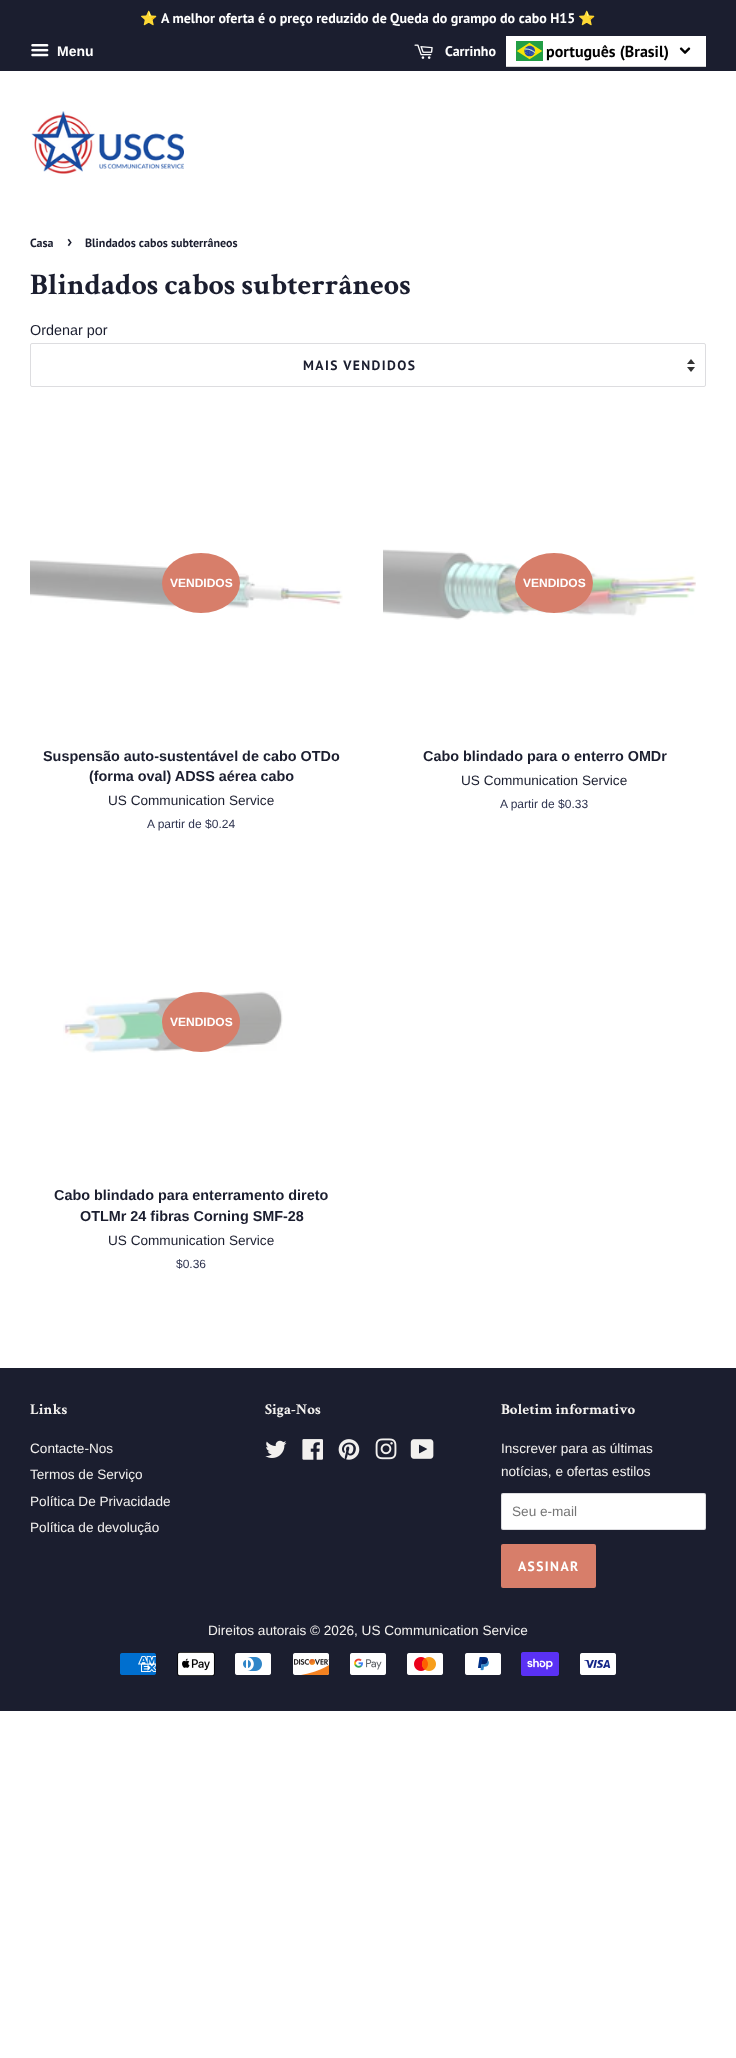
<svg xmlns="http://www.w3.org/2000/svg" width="736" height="2058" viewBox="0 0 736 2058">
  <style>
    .t1 { font: bold 14px Noto Color Emoji; fill: #fff; }
    .t2 { font: bold 14px PT Sans; fill: #fff; }
    .t3 { font: bold 14px Liberation Sans; fill: #fff; }
    .t4 { font: bold 16px PT Sans; fill: #000; }
    .t5 { font: bold 12px PT Sans; fill: #1b1e2f; }
    .t6 { font: bold 17px PT Sans; fill: #1b1e2f; }
    .t7 { font: bold 30px Crimson Text; fill: #1b1e2f; }
    .t8 { font: 14.4px Liberation Sans; fill: #1b1e2f; }
    .t9 { font: bold 13.6px PT Sans; letter-spacing: 1.4px; fill: #1b1e2f; }
    .t10 { font: bold 12px Liberation Sans; fill: #fff; }
    .t11 { font: bold 14.4px Liberation Sans; fill: #1b1e2f; }
    .t12 { font: 13.6px Liberation Sans; fill: #1b1e2f; }
    .t13 { font: 12px Liberation Sans; fill: #2e334f; }
    .t14 { font: bold 15px Crimson Text; fill: #f2f0ee; }
    .t15 { font: 13.6px Liberation Sans; fill: #f2f0ee; }
    .t16 { font: 13.6px Liberation Sans; fill: #757575; }
    .t17 { font: bold 13.6px PT Sans; letter-spacing: 1.4px; fill: #fff; }
  </style>
  <rect width="100%" height="100%" fill="#fff"/>
  <rect x="0" y="0" width="736" height="71" fill="#1b1e2f"/>
  <text x="140" y="23" class="t1">⭐</text>
  <text x="161" y="23" class="t2">A melhor oferta é o preço reduzido de Queda do grampo do cabo H15</text>
  <text x="578" y="23" class="t1">⭐</text>
  <image x="31" y="44" width="18" height="13" href="images/1.png"/>
  <text x="57" y="56" class="t3">Menu</text>
  <image x="414" y="44" width="19" height="15" href="images/2.png"/>
  <text x="445" y="56" class="t2">Carrinho</text>
  <rect x="506" y="36" width="200" height="30" fill="#fff"/>
  <image x="516" y="41" width="27" height="20" href="images/3.png"/>
  <rect x="506" y="66" width="200" height="1" fill="#d4d4d4"/>
  <text x="546" y="57" class="t4">português (Brasil)</text>
  <image x="679" y="47" width="12" height="7" href="images/4.png"/>
  <image x="31" y="111" width="153" height="63" href="images/5.png"/>
  <text x="30" y="247" class="t5">Casa</text>
  <text x="67" y="247" class="t6">›</text>
  <text x="85" y="247" class="t5">Blindados cabos subterrâneos</text>
  <text x="30" y="294" class="t7">Blindados cabos subterrâneos</text>
  <text x="30" y="335" class="t8">Ordenar por</text>
  <image x="687" y="359" width="8" height="13" href="images/6.png"/>
  <rect x="30.5" y="343.5" width="675" height="43" rx="1.5" fill="none" stroke="#dddde0"/>
  <text x="303" y="370" class="t9">MAIS VENDIDOS</text>
  <image x="30" y="560" width="313" height="49" href="images/7.png"/>
  <ellipse cx="201" cy="583" rx="39" ry="30" fill="#d77e6a"/>
  <text x="170" y="587" class="t10">VENDIDOS</text>
  <text x="43" y="761" class="t11">Suspensão auto-sustentável de cabo OTDo</text>
  <text x="89" y="781" class="t11">(forma oval) ADSS aérea cabo</text>
  <text x="108" y="805" class="t12">US Communication Service</text>
  <text x="147" y="828" class="t13">A partir de $0.24</text>
  <image x="383" y="549" width="313" height="71" href="images/8.png"/>
  <ellipse cx="554" cy="583" rx="39" ry="30" fill="#d77e6a"/>
  <text x="523" y="587" class="t10">VENDIDOS</text>
  <text x="423" y="761" class="t11">Cabo blindado para o enterro OMDr</text>
  <text x="461" y="785" class="t12">US Communication Service</text>
  <text x="500" y="808" class="t13">A partir de $0.33</text>
  <image x="63" y="991" width="220" height="62" href="images/9.png"/>
  <ellipse cx="201" cy="1022" rx="39" ry="30" fill="#d77e6a"/>
  <text x="170" y="1026" class="t10">VENDIDOS</text>
  <text x="54" y="1200" class="t11">Cabo blindado para enterramento direto</text>
  <text x="80" y="1221" class="t11">OTLMr 24 fibras Corning SMF-28</text>
  <text x="108" y="1245" class="t12">US Communication Service</text>
  <text x="176" y="1268" class="t13">$0.36</text>
  <rect x="0" y="1368" width="736" height="343" fill="#1b1e2f"/>
  <text x="30" y="1414" class="t14">Links</text>
  <text x="30" y="1453" class="t15">Contacte-Nos</text>
  <text x="30" y="1479" class="t15">Termos de Serviço</text>
  <text x="30" y="1506" class="t15">Política De Privacidade</text>
  <text x="30" y="1532" class="t15">Política de devolução</text>
  <text x="265" y="1414" class="t14">Siga-Nos</text>
  <image x="265" y="1440" width="22" height="18" href="images/10.png"/>
  <image x="302" y="1439" width="21" height="21" href="images/11.png"/>
  <image x="338" y="1439" width="22" height="21" href="images/12.png"/>
  <image x="375" y="1438" width="22" height="22" href="images/13.png"/>
  <image x="410" y="1439" width="24" height="20" href="images/14.png"/>
  <text x="501" y="1414" class="t14">Boletim informativo</text>
  <text x="501" y="1453" class="t15">Inscrever para as últimas</text>
  <text x="501" y="1476" class="t15">notícias, e ofertas estilos</text>
  <rect x="501" y="1493" width="205" height="37" rx="2" fill="#fff"/>
  <rect x="501.5" y="1493.5" width="204" height="36" rx="1.5" fill="none" stroke="#1b1e2f26"/>
  <text x="512" y="1516" class="t16">Seu e-mail</text>
  <rect x="501" y="1544" width="95" height="44" rx="2" fill="#d77e6a"/>
  <text x="518" y="1571" class="t17">ASSINAR</text>
  <text x="208" y="1635" class="t15">Direitos autorais © 2026, US Communication Service</text>
  <image x="120" y="1653" width="36" height="22" href="images/15.png"/>
  <image x="177" y="1652" width="38" height="24" href="images/16.png"/>
  <image x="235" y="1653" width="36" height="22" href="images/17.png"/>
  <image x="293" y="1653" width="36" height="22" href="images/18.png"/>
  <image x="350" y="1653" width="36" height="22" href="images/19.png"/>
  <image x="407" y="1653" width="36" height="22" href="images/20.png"/>
  <image x="465" y="1653" width="36" height="22" href="images/21.png"/>
  <image x="521" y="1652" width="38" height="24" href="images/22.png"/>
  <image x="580" y="1653" width="36" height="22" href="images/23.png"/>
</svg>
